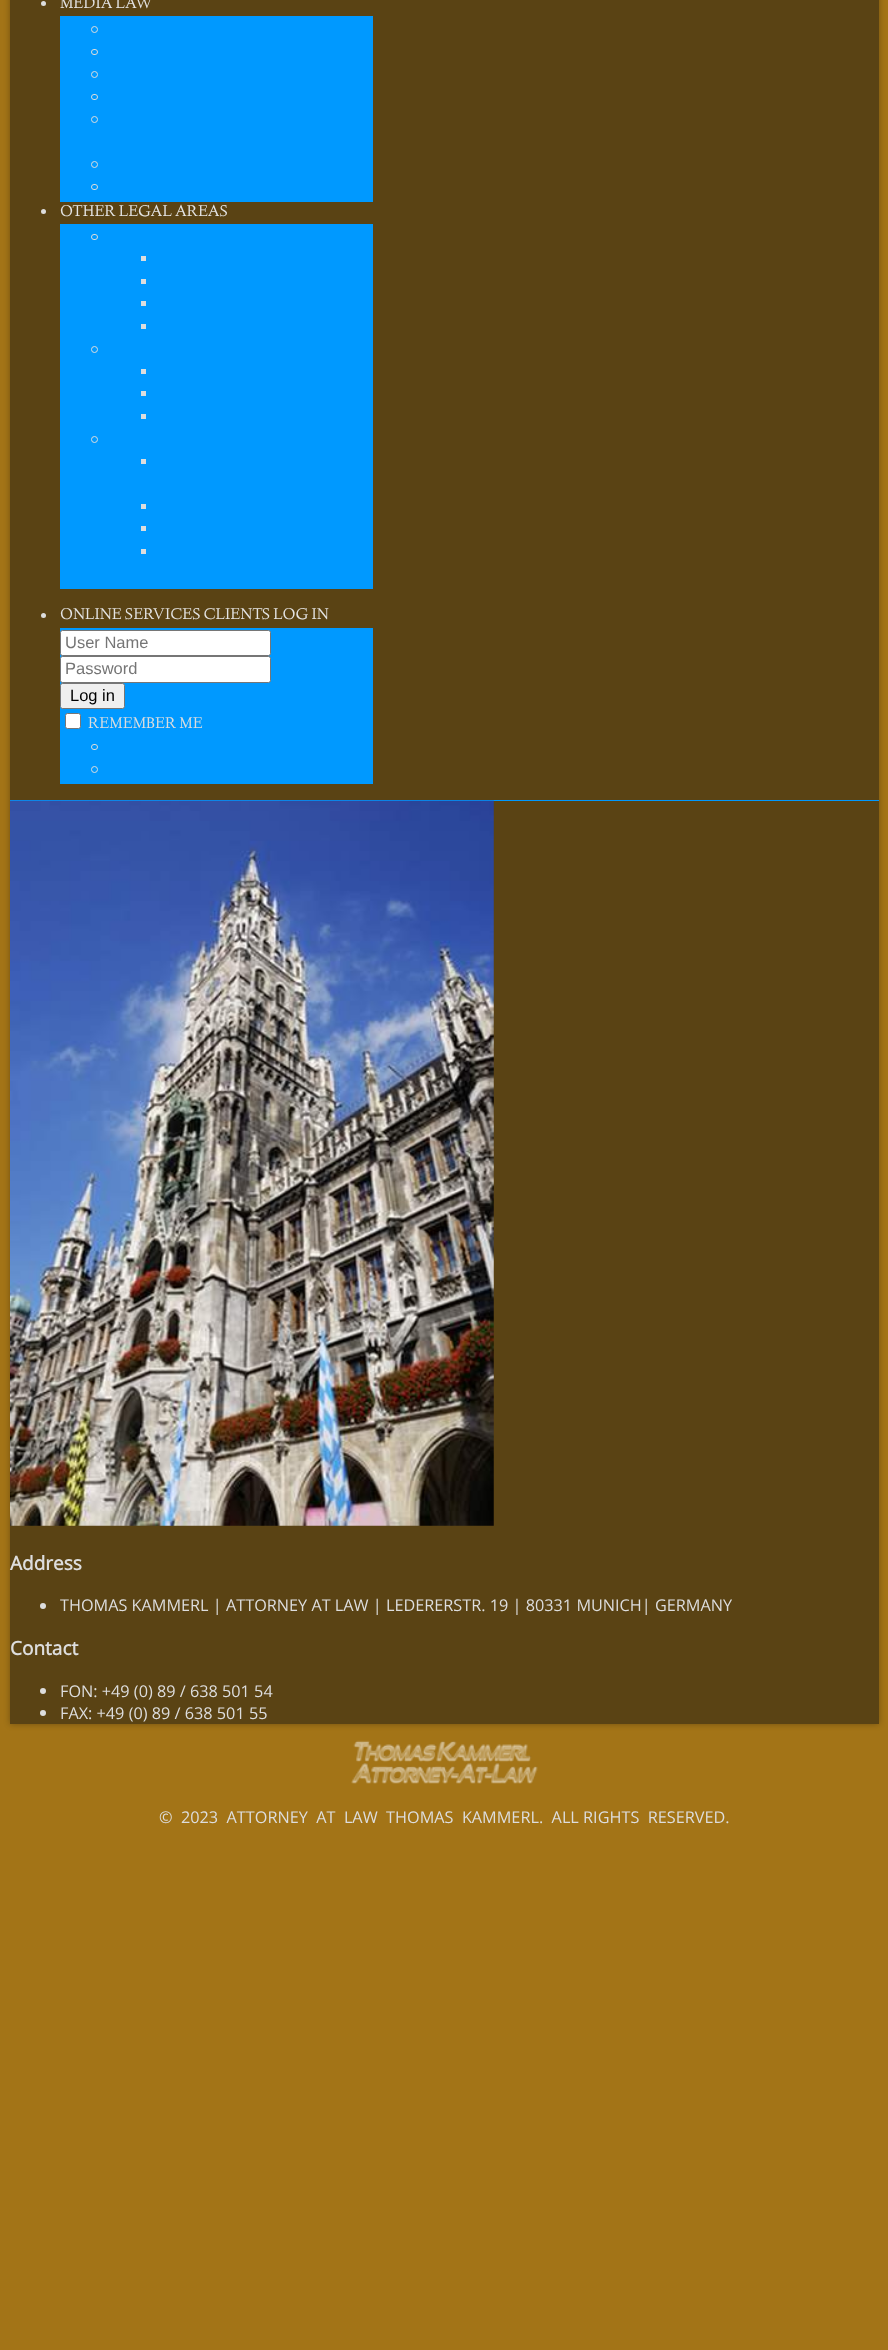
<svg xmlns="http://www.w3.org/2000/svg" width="888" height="2350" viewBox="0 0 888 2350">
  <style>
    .t1 { font: 16.25px Linden Hill; fill: #e5e5e5; }
    .t2 { font: 16.5px Liberation Sans; fill: #757575; }
    .t3 { font: 16.5px Liberation Sans; fill: #000; }
    .t4 { font: 16.25px Linden Hill; fill: #ddd; }
    .t5 { font: bold 19px Open Sans; fill: #ddd; }
    .t6 { font: 16.25px Open Sans; fill: #ddd; }
  </style>
  <defs>
    <clipPath id="clip1"><path d="M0 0H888V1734H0ZM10-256H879V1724H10Z" clip-rule="evenodd"/></clipPath>
  </defs>
  <rect width="100%" height="100%" fill="#a37417"/>
  <g clip-path="url(#clip1)">
    <rect x="10" y="-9" width="869" height="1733" fill="#0000004d" filter="blur(3px)"/>
  </g>
  <rect x="10" y="0" width="869" height="1724" fill="#11111180"/>
  <rect x="10" y="800" width="869" height="1" fill="#09f"/>
  <circle cx="43.5" cy="3.5" r="2.5" fill="#ddd"/>
  <text x="60" y="8" class="t1">MEDIA LAW</text>
  <rect x="60" y="16" width="313" height="186" fill="#09f"/>
  <circle cx="94.5" cy="29.5" r="3" fill="none" stroke="#ddd"/>
  <rect x="91.5" y="49.5" width="6" height="5" rx="2.5" fill="none" stroke="#ddd"/>
  <circle cx="94.5" cy="74.5" r="3" fill="none" stroke="#ddd"/>
  <rect x="91.5" y="94.5" width="6" height="5" rx="2.5" fill="none" stroke="#ddd"/>
  <circle cx="94.5" cy="119.5" r="3" fill="none" stroke="#ddd"/>
  <circle cx="94.5" cy="164.5" r="3" fill="none" stroke="#ddd"/>
  <rect x="91.5" y="184.5" width="6" height="5" rx="2.5" fill="none" stroke="#ddd"/>
  <circle cx="43.5" cy="211.5" r="2.5" fill="#ddd"/>
  <text x="60" y="216" class="t1">OTHER LEGAL AREAS</text>
  <rect x="60" y="224" width="313" height="365" fill="#09f"/>
  <rect x="91.5" y="234.5" width="6" height="5" rx="2.5" fill="none" stroke="#ddd"/>
  <rect x="141" y="256" width="5" height="5" fill="#ddd"/>
  <rect x="141" y="279" width="5" height="5" fill="#ddd"/>
  <rect x="141" y="301" width="5" height="5" fill="#ddd"/>
  <rect x="141" y="324" width="5" height="5" fill="#ddd"/>
  <circle cx="94.5" cy="349.5" r="3" fill="none" stroke="#ddd"/>
  <rect x="141" y="369" width="5" height="5" fill="#ddd"/>
  <rect x="141" y="391" width="5" height="5" fill="#ddd"/>
  <rect x="141" y="414" width="5" height="5" fill="#ddd"/>
  <circle cx="94.5" cy="439.5" r="3" fill="none" stroke="#ddd"/>
  <rect x="141" y="459" width="5" height="5" fill="#ddd"/>
  <rect x="141" y="504" width="5" height="5" fill="#ddd"/>
  <rect x="141" y="526" width="5" height="5" fill="#ddd"/>
  <rect x="141" y="549" width="5" height="5" fill="#ddd"/>
  <circle cx="43.5" cy="615.5" r="2.5" fill="#ddd"/>
  <text x="60" y="619" class="t1">ONLINE SERVICES CLIENTS LOG IN</text>
  <rect x="60" y="628" width="313" height="156" fill="#09f"/>
  <rect x="60.5" y="630.5" width="210" height="25" rx="2" fill="#fff" stroke="#767676"/>
  <text x="65" y="648" class="t2">User Name</text>
  <rect x="60.5" y="656.5" width="210" height="26" rx="2" fill="#fff" stroke="#767676"/>
  <text x="65" y="674" class="t2">Password</text>
  <rect x="60.5" y="683.5" width="64" height="25" rx="2" fill="#efefef" stroke="#767676"/>
  <text x="70" y="701" class="t3">Log in</text>
  <rect x="65.5" y="713.5" width="15" height="15" rx="2" fill="#fff" stroke="#767676"/>
  <text x="88" y="728" class="t4">REMEMBER ME</text>
  <rect x="91.5" y="744.5" width="6" height="5" rx="2.5" fill="none" stroke="#ddd"/>
  <circle cx="94.5" cy="769.5" r="3" fill="none" stroke="#ddd"/>
  <image x="10" y="800" width="484" height="726" href="images/1.png"/>
  <text x="10" y="1570" class="t5">Address</text>
  <circle cx="43" cy="1606" r="3" fill="#ddd"/>
  <text x="60" y="1611" class="t6">THOMAS KAMMERL | ATTORNEY AT LAW | LEDERERSTR. 19 | 80331 MUNICH| GERMANY</text>
  <text x="10" y="1655" class="t5">Contact</text>
  <circle cx="43" cy="1691" r="3" fill="#ddd"/>
  <text x="60" y="1697" class="t6">FON: +49 (0) 89 / 638 501 54</text>
  <circle cx="43" cy="1713" r="3" fill="#ddd"/>
  <text x="60" y="1719" class="t6">FAX: +49 (0) 89 / 638 501 55</text>
  <image x="351" y="1740" width="187" height="44" href="images/2.png"/>
  <text x="159" y="1823" class="t6" xml:space="preserve">©  2023  ATTORNEY  AT  LAW  THOMAS  KAMMERL.  ALL RIGHTS  RESERVED.</text>
</svg>
